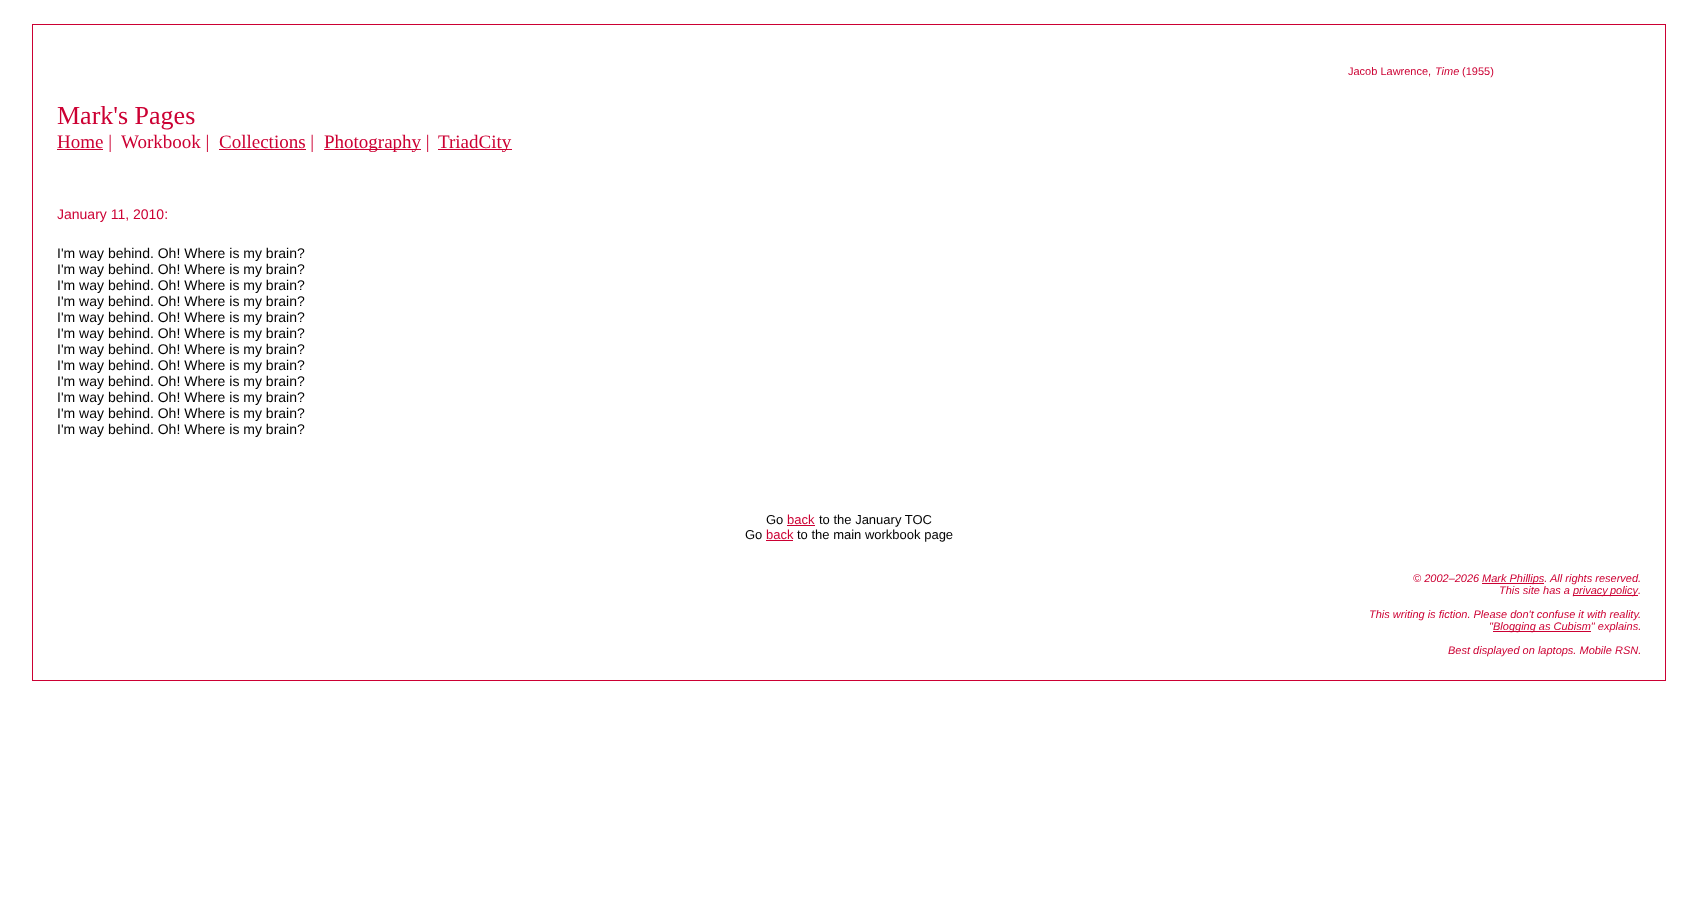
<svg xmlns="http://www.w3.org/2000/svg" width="1698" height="913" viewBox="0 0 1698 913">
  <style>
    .t1 { font: 11px Liberation Sans; fill: #c03; }
    .t2 { font: italic 11px Liberation Sans; fill: #c03; }
    .t3 { font: 26px Liberation Serif; fill: #c03; }
    .t4 { font: 19px Liberation Serif; fill: #c03; }
    .t5 { font: 14px Liberation Sans; fill: #c03; }
    .t6 { font: 14px Liberation Sans; fill: #000; }
    .t7 { font: 13px Liberation Sans; fill: #000; }
    .t8 { font: 13px Liberation Sans; fill: #c03; }
  </style>
  <rect width="100%" height="100%" fill="#fff"/>
  <rect x="32.5" y="24.5" width="1633" height="656" fill="none" stroke="#c03"/>
  <text x="1348" y="75" class="t1">Jacob Lawrence,</text>
  <text x="1435" y="75" class="t2">Time</text>
  <text x="1462" y="75" class="t1">(1955)</text>
  <text x="57" y="124" class="t3">Mark's Pages</text>
  <rect x="57" y="149" width="46" height="1" fill="#c03"/>
  <text x="57" y="148" class="t4">Home |</text>
  <text x="121" y="148" class="t4">Workbook |</text>
  <rect x="219" y="149" width="87" height="1" fill="#c03"/>
  <text x="219" y="148" class="t4">Collections |</text>
  <rect x="324" y="149" width="97" height="1" fill="#c03"/>
  <text x="324" y="148" class="t4">Photography |</text>
  <rect x="438" y="149" width="74" height="1" fill="#c03"/>
  <text x="438" y="148" class="t4">TriadCity</text>
  <text x="57" y="219" class="t5">January 11, 2010:</text>
  <text x="57" y="258" class="t6">I'm way behind. Oh! Where is my brain?</text>
  <text x="57" y="274" class="t6">I'm way behind. Oh! Where is my brain?</text>
  <text x="57" y="290" class="t6">I'm way behind. Oh! Where is my brain?</text>
  <text x="57" y="306" class="t6">I'm way behind. Oh! Where is my brain?</text>
  <text x="57" y="322" class="t6">I'm way behind. Oh! Where is my brain?</text>
  <text x="57" y="338" class="t6">I'm way behind. Oh! Where is my brain?</text>
  <text x="57" y="354" class="t6">I'm way behind. Oh! Where is my brain?</text>
  <text x="57" y="370" class="t6">I'm way behind. Oh! Where is my brain?</text>
  <text x="57" y="386" class="t6">I'm way behind. Oh! Where is my brain?</text>
  <text x="57" y="402" class="t6">I'm way behind. Oh! Where is my brain?</text>
  <text x="57" y="418" class="t6">I'm way behind. Oh! Where is my brain?</text>
  <text x="57" y="434" class="t6">I'm way behind. Oh! Where is my brain?</text>
  <text x="766" y="524" class="t7">Go</text>
  <text x="787" y="524" class="t8">back</text>
  <rect x="787" y="525" width="28" height="1" fill="#c03"/>
  <text x="819" y="524" class="t7">to the January TOC</text>
  <text x="745" y="539" class="t7">Go</text>
  <text x="766" y="539" class="t8">back</text>
  <rect x="766" y="540" width="27" height="1" fill="#c03"/>
  <text x="797" y="539" class="t7">to the main workbook page</text>
  <text x="1413" y="582" class="t2">© 2002–2026</text>
  <rect x="1482" y="583" width="62" height="1" fill="#c03"/>
  <text x="1482" y="582" class="t2">Mark Phillips.</text>
  <text x="1550" y="582" class="t2">All rights reserved.</text>
  <text x="1499" y="594" class="t2">This site has a</text>
  <rect x="1573" y="595" width="65" height="1" fill="#c03"/>
  <text x="1573" y="594" word-spacing="-1" class="t2">privacy policy</text>
  <text x="1638" y="594" class="t2">.</text>
  <text x="1369" y="618" class="t2">This writing is fiction. Please don't confuse it with reality.</text>
  <text x="1489" y="630" class="t2">"</text>
  <rect x="1493" y="631" width="98" height="1" fill="#c03"/>
  <text x="1493" y="630" class="t2">Blogging as Cubism" explains.</text>
  <text x="1448" y="654" class="t2">Best displayed on laptops. Mobile RSN.</text>
</svg>
